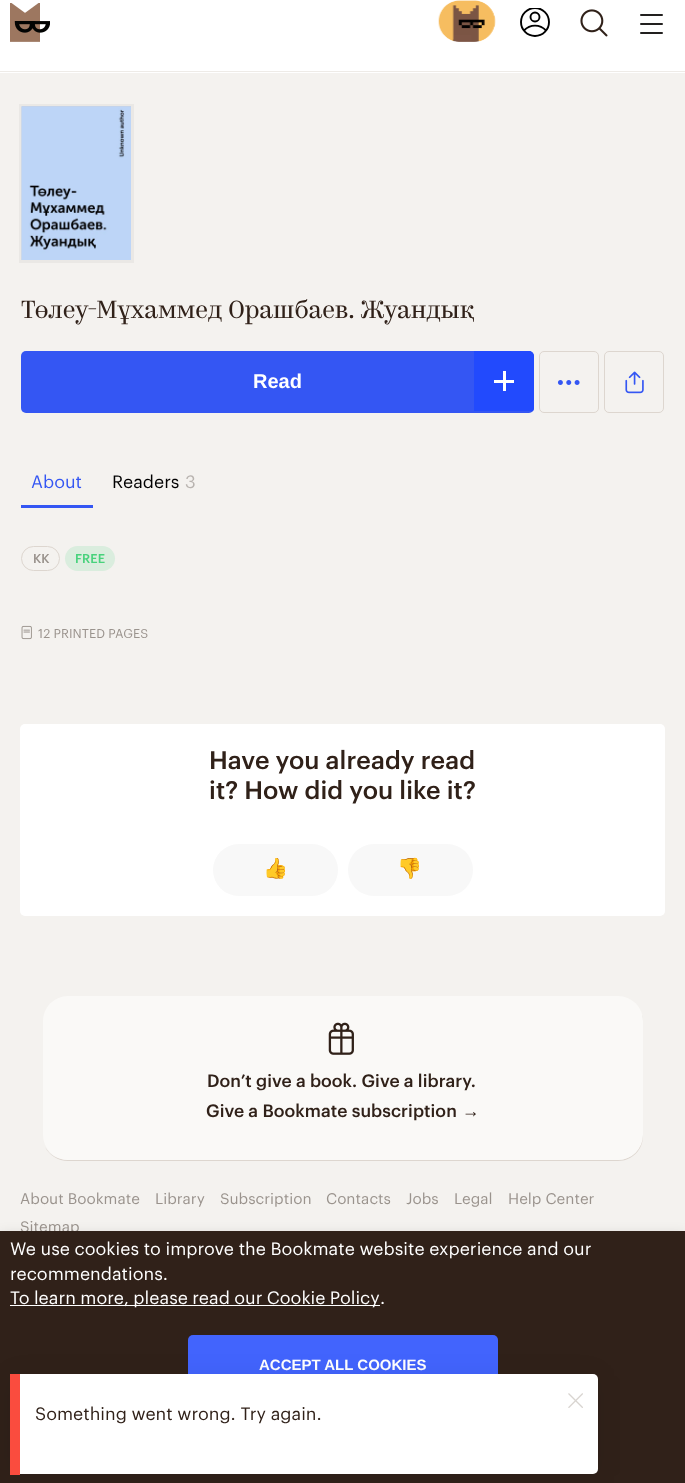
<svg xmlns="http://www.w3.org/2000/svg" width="685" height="1483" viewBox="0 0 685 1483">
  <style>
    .t1 { font: 25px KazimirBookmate; fill: #302119; }
    .t2 { font: bold 20px Liberation Sans; fill: #fff; }
    .t3 { font: 17.5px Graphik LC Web; fill: #3456f3; }
    .t4 { font: 17.5px Graphik LC Web; fill: #000; }
    .t5 { font: 17.5px Graphik LC Web; fill: #b8b3af; }
    .t6 { font: 500 12.5px Graphik LC Web; fill: #9a938d; }
    .t7 { font: 500 12.5px Graphik LC Web; fill: #48d27c; }
    .t8 { font: 12.5px Graphik LC Web; fill: #9a938d; }
    .t9 { font: 500 25px Graphik LC Web; fill: #302119; }
    .t10 { font: 20px Noto Color Emoji; fill: #302119; }
    .t11 { font: 500 17.5px Graphik LC Web; fill: #302119; }
    .t12 { font: bold 17.5px Liberation Sans; fill: #302119; }
    .t13 { font: 15px Graphik LC Web; fill: #9a938d; }
    .t14 { font: 17.5px Graphik LC Web; fill: #fff; }
    .t15 { font: bold 15px Liberation Sans; fill: #fff; }
    .t16 { font: 17.5px Graphik LC Web; fill: #302119; }
  </style>
  <defs>
    <clipPath id="clip1"><rect x="520" y="8" width="30" height="30"/></clipPath>
    <clipPath id="clip2"><rect x="21" y="351" width="513" height="62" rx="5"/></clipPath>
  </defs>
  <rect width="100%" height="100%" fill="#f4f2ef"/>
  <rect x="0" y="0" width="685" height="73" fill="#fff"/>
  <rect x="0" y="71" width="685" height="1" fill="#eeebe7"/>
  <image x="10" y="3" width="40" height="39" href="images/1.png"/>
  <image x="438" y="0" width="58" height="42" href="images/2.png"/>
  <g clip-path="url(#clip1)">
    <circle cx="535" cy="22" r="14" fill="none" stroke="#000" stroke-width="1.9"/>
  </g>
  <circle cx="535" cy="17" r="4.5" fill="none" stroke="#000" stroke-width="1.9"/>
  <path d="M524 30.5C530 24 540 24 546 30.5" fill="none" stroke="#000" stroke-width="1.9"/>
  <image x="580" y="9" width="28" height="28" href="images/3.png"/>
  <rect x="640" y="14" width="23" height="2" rx="1" fill="#22201f"/>
  <rect x="640" y="23" width="23" height="2" rx="1" fill="#22201f"/>
  <rect x="640" y="32" width="23" height="2" rx="1" fill="#22201f"/>
  <image x="21" y="106" width="110" height="154" href="images/4.png"/>
  <rect x="20.5" y="105.5" width="112" height="156" fill="none" stroke="#0000000a" stroke-width="3"/>
  <text x="21" y="318" class="t1">Төлеу-Мұхаммед Орашбаев. Жуандық</text>
  <rect x="21" y="351" width="513" height="62" rx="5" fill="#3456f3"/>
  <text x="253" y="388" class="t2">Read</text>
  <g clip-path="url(#clip2)">
    <path d="M474 351H529C532 351 534 353 534 356V411H474Z" fill="#224afd"/>
  </g>
  <rect x="494" y="380" width="20" height="3" fill="#fff"/>
  <rect x="503" y="371" width="3" height="20" fill="#fff"/>
  <rect x="539.5" y="351.5" width="59" height="61" rx="4.5" fill="none" stroke="#ddd6cf"/>
  <image x="557" y="380" width="23" height="5" href="images/5.png"/>
  <rect x="604.5" y="351.5" width="59" height="61" rx="4.5" fill="none" stroke="#ddd6cf"/>
  <image x="625" y="371" width="19" height="23" href="images/6.png"/>
  <rect x="21" y="505" width="72" height="3" fill="#3456f3"/>
  <text x="31" y="488" class="t3">About</text>
  <text x="112" y="488" class="t4">Readers</text>
  <text x="185" y="488" class="t5">3</text>
  <rect x="21.5" y="546.5" width="38" height="24" rx="12" fill="none" stroke="#ddd6cf"/>
  <text x="33" y="563" class="t6">KK</text>
  <rect x="65" y="546" width="50" height="25" rx="12.5" fill="#daedde"/>
  <text x="75" y="563" class="t7">FREE</text>
  <image x="21" y="625" width="11" height="15" href="images/7.png"/>
  <text x="38" y="638" class="t8">12 PRINTED PAGES</text>
  <rect x="20" y="724" width="645" height="192" rx="5" fill="#fff"/>
  <text x="209" y="769" class="t9">Have you already read</text>
  <text x="209" y="799" class="t9">it? How did you like it?</text>
  <rect x="213" y="844" width="125" height="52" rx="26" fill="#f8f8f8"/>
  <text x="263" y="875" class="t10">👍</text>
  <rect x="348" y="844" width="125" height="52" rx="26" fill="#f8f8f8"/>
  <text x="397" y="875" class="t10">👎</text>
  <path d="M45 1147C49 1155 58 1161 68 1161H618C632 1161 643 1150 643 1136V1023C643 1020 643 1018 642 1015V1021V1135C642 1149 631 1160 618 1160H68C58 1160 50 1155 45 1147Z" fill="#ddd6cf"/>
  <rect x="43" y="996" width="600" height="164" rx="25" fill="#faf9f7"/>
  <image x="328" y="1022" width="26" height="33" href="images/8.png"/>
  <text x="207" y="1087" class="t11">Don’t give a book. Give a library.</text>
  <text x="206" y="1117" class="t11">Give a Bookmate subscription</text>
  <text x="462" y="1117" class="t12">→</text>
  <text x="20" y="1204" class="t13">About Bookmate</text>
  <text x="155" y="1204" class="t13">Library</text>
  <text x="220" y="1204" class="t13">Subscription</text>
  <text x="326" y="1204" class="t13">Contacts</text>
  <text x="406" y="1204" class="t13">Jobs</text>
  <text x="454" y="1204" class="t13">Legal</text>
  <text x="508" y="1204" class="t13">Help Center</text>
  <text x="20" y="1232" class="t13">Sitemap</text>
  <rect x="0" y="1233" width="685" height="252" fill="#0000001a" filter="blur(6px)"/>
  <rect x="0" y="1231" width="685" height="252" fill="#302119"/>
  <text x="10" y="1255" class="t14">We use cookies to improve the Bookmate website experience and our</text>
  <text x="10" y="1280" class="t14">recommendations.</text>
  <rect x="10" y="1305" width="370" height="1" fill="#fff"/>
  <text x="10" y="1304" word-spacing="-0.25" class="t14">To learn more, please read our Cookie Policy</text>
  <text x="380" y="1304" class="t14">.</text>
  <rect x="188" y="1335" width="310" height="60" rx="5" fill="#4264fd"/>
  <text x="259" y="1370" class="t15">ACCEPT ALL COOKIES</text>
  <rect x="10" y="1376" width="588" height="100" rx="5" fill="#00000012" filter="blur(12.5px)"/>
  <rect x="10" y="1374" width="588" height="100" rx="5" fill="#fff"/>
  <rect x="10" y="1374" width="10" height="101" fill="#fa4c3e"/>
  <image x="568" y="1393" width="15" height="15" href="images/9.png"/>
  <text x="35" y="1420" class="t16">Something went wrong. Try again.</text>
</svg>
